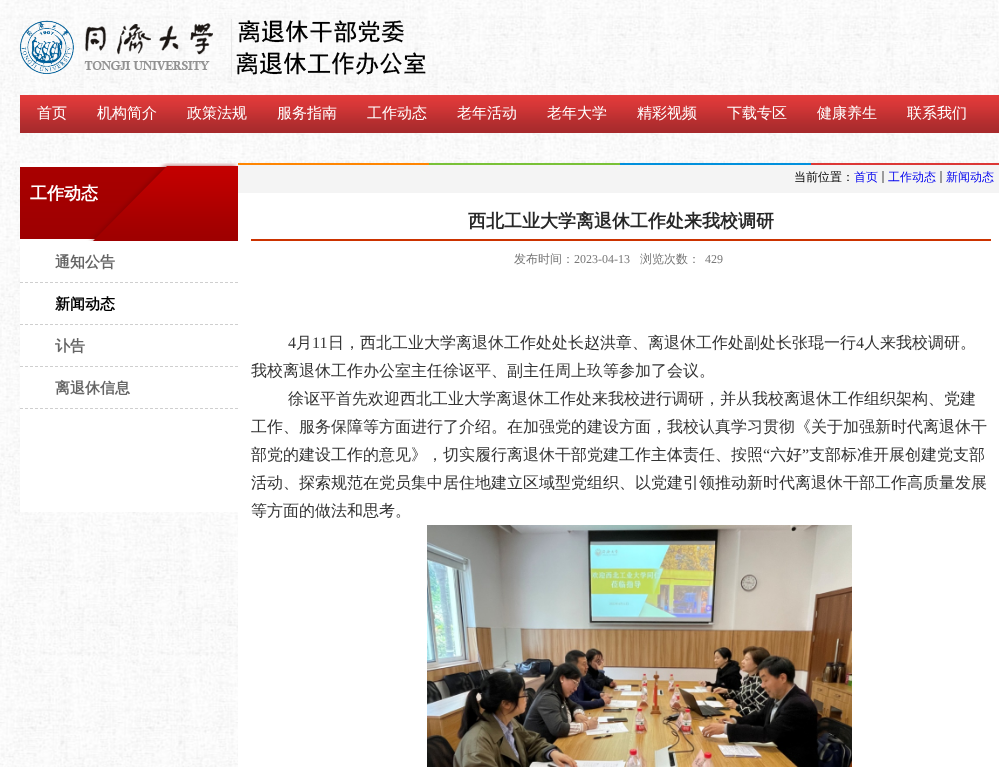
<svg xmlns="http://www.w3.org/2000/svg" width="999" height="767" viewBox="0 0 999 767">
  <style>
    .t1 { font: 500 15px WenQuanYi Zen Hei; fill: #fff; }
    .t2 { font: bold 17px WenQuanYi Zen Hei; fill: #fff; }
    .t3 { font: bold 15px WenQuanYi Zen Hei; fill: #666; }
    .t4 { font: bold 15px WenQuanYi Zen Hei; fill: #000; }
    .t5 { font: 500 12px WenQuanYi Zen Hei; fill: #000; }
    .t6 { font: 500 12px WenQuanYi Zen Hei; fill: #00e; }
    .t7 { font: bold 18px WenQuanYi Zen Hei; fill: #282828; }
    .t8 { font: 500 12px WenQuanYi Zen Hei; fill: #787878; }
    .t9 { font: 12px Liberation Serif; fill: #787878; }
    .t10 { font: 16px Liberation Serif; fill: #333; }
    .t11 { font: 500 16px WenQuanYi Zen Hei; fill: #333; }
  </style>
  <rect width="100%" height="100%" fill="#fff"/>
  <image x="0" y="0" width="999" height="767" href="images/1.png"/>
  <image x="20" y="19" width="406" height="58" href="images/2.png"/>
  <image x="20" y="95" width="979" height="38" href="images/3.png"/>
  <text x="37" y="118" class="t1">首页</text>
  <text x="97" y="118" class="t1">机构简介</text>
  <text x="187" y="118" class="t1">政策法规</text>
  <text x="277" y="118" class="t1">服务指南</text>
  <text x="367" y="118" class="t1">工作动态</text>
  <text x="457" y="118" class="t1">老年活动</text>
  <text x="547" y="118" class="t1">老年大学</text>
  <text x="637" y="118" class="t1">精彩视频</text>
  <text x="727" y="118" class="t1">下载专区</text>
  <text x="817" y="118" class="t1">健康养生</text>
  <text x="907" y="118" class="t1">联系我们</text>
  <rect x="20" y="163" width="218" height="349" fill="#fff"/>
  <image x="20" y="163" width="218" height="78" href="images/4.png"/>
  <text x="30" y="199" class="t2">工作动态</text>
  <path d="M20 282.5H238" fill="none" stroke="#cfcfcf" stroke-dasharray="3 2"/>
  <text x="55" y="267" class="t3">通知公告</text>
  <path d="M20 324.5H238" fill="none" stroke="#cfcfcf" stroke-dasharray="3 2"/>
  <text x="55" y="309" class="t4">新闻动态</text>
  <path d="M20 366.5H238" fill="none" stroke="#cfcfcf" stroke-dasharray="3 2"/>
  <text x="55" y="351" class="t3">讣告</text>
  <path d="M20 408.5H238" fill="none" stroke="#cfcfcf" stroke-dasharray="3 2"/>
  <text x="55" y="393" class="t3">离退休信息</text>
  <rect x="238" y="193" width="761" height="574" fill="#fff"/>
  <image x="238" y="163" width="761" height="30" href="images/5.png"/>
  <text x="794" y="181" class="t5">当前位置：</text>
  <text x="854" y="181" class="t6">首页</text>
  <rect x="882" y="171" width="2" height="12" fill="#9c9c9c"/>
  <text x="888" y="181" class="t6">工作动态</text>
  <rect x="940" y="171" width="2" height="12" fill="#9c9c9c"/>
  <text x="946" y="181" class="t6">新闻动态</text>
  <rect x="251" y="239" width="740" height="2" fill="#c30"/>
  <text x="468" y="227" class="t7">西北工业大学离退休工作处来我校调研</text>
  <text x="514" y="263" class="t8">发布时间：</text>
  <text x="574" y="263" class="t9">2023-04-13</text>
  <text x="640" y="263" class="t8">浏览次数：</text>
  <text x="705" y="263" class="t9">429</text>
  <text x="288" y="348" class="t10">4</text>
  <text x="296" y="348" class="t11">月</text>
  <text x="312" y="348" class="t10">11</text>
  <text x="328" y="348" class="t11">日，西北工业大学离退休工作处处长赵洪章、离退休工作处副处长张琨一行</text>
  <text x="856" y="348" class="t10">4</text>
  <text x="864" y="348" class="t11">人来我校调研。</text>
  <text x="251" y="376" class="t11">我校离退休工作办公室主任徐讴平、副主任周上玖等参加了会议。</text>
  <text x="288" y="404" class="t11">徐讴平首先欢迎西北工业大学离退休工作处来我校进行调研，并从我校离退休工作组织架构、党建</text>
  <text x="251" y="432" class="t11">工作、服务保障等方面进行了介绍。在加强党的建设方面，我校认真学习贯彻《关于加强新时代离退休干</text>
  <text x="251" y="460" class="t11">部党的建设工作的意见》，切实履行离退休干部党建工作主体责任、按照</text>
  <text x="763" y="460" class="t10">“</text>
  <text x="770" y="460" class="t11">六好</text>
  <text x="802" y="460" class="t10">”</text>
  <text x="809" y="460" class="t11">支部标准开展创建党支部</text>
  <text x="251" y="488" class="t11">活动、探索规范在党员集中居住地建立区域型党组织、以党建引领推动新时代离退休干部工作高质量发展</text>
  <text x="251" y="516" class="t11">等方面的做法和思考。</text>
  <image x="427" y="525" width="425" height="242" href="images/6.png"/>
</svg>
